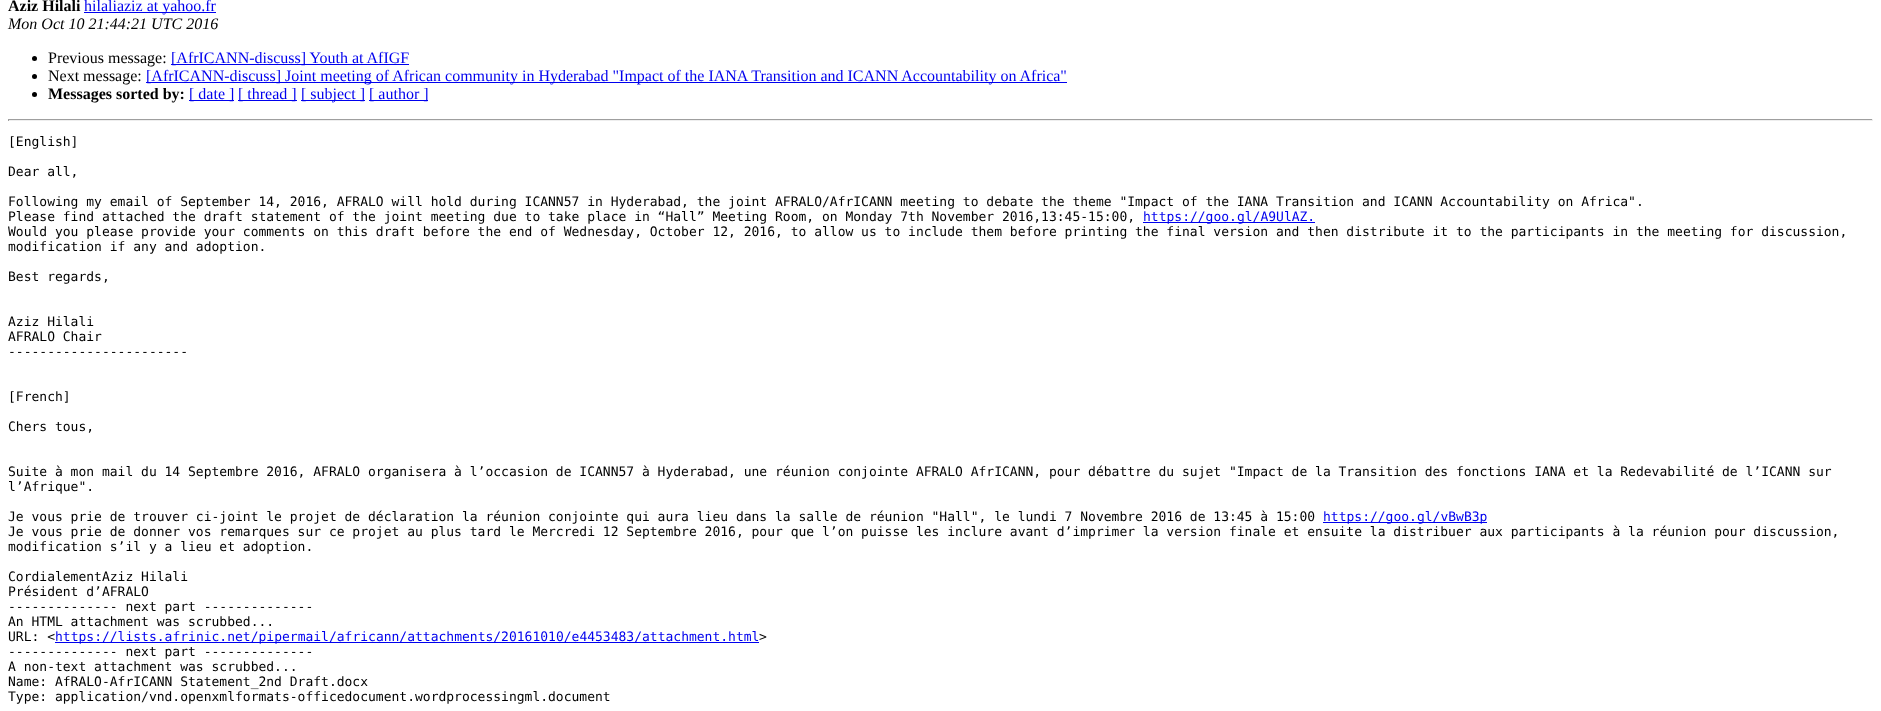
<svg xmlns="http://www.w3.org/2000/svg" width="1881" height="711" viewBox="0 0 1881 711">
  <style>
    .t1 { font: bold 16px Liberation Serif; fill: #000; }
    .t2 { font: 16px Liberation Serif; fill: #00e; }
    .t3 { font: italic 16px Liberation Serif; fill: #000; }
    .t4 { font: 16px Liberation Serif; fill: #000; }
    .t5 { font: 13px DejaVu Sans Mono; fill: #000; }
    .t6 { font: 13px DejaVu Sans Mono; fill: #00e; }
  </style>
  <rect width="100%" height="100%" fill="#fff"/>
  <text x="8" y="11" class="t1">Aziz Hilali</text>
  <rect x="84" y="12" width="132" height="1" fill="#00e"/>
  <text x="84" y="11" class="t2">hilaliaziz at yahoo.fr</text>
  <text x="8" y="29" class="t3">Mon Oct 10 21:44:21 UTC 2016</text>
  <circle cx="34.5" cy="58.5" r="2.5" fill="#000"/>
  <text x="48" y="63" class="t4">Previous message:</text>
  <rect x="171" y="64" width="238" height="1" fill="#00e"/>
  <text x="171" y="63" class="t2">[AfrICANN-discuss] Youth at AfIGF</text>
  <circle cx="34.5" cy="76.5" r="2.5" fill="#000"/>
  <text x="48" y="81" class="t4">Next message:</text>
  <rect x="146" y="82" width="921" height="1" fill="#00e"/>
  <text x="146" y="81" class="t2">[AfrICANN-discuss] Joint meeting of African community in Hyderabad "Impact of the IANA Transition and ICANN Accountability on Africa"</text>
  <circle cx="34.5" cy="94.5" r="2.5" fill="#000"/>
  <text x="48" y="99" class="t1">Messages sorted by:</text>
  <rect x="189" y="100" width="45" height="1" fill="#00e"/>
  <text x="189" y="99" class="t2">[ date ]</text>
  <rect x="238" y="100" width="59" height="1" fill="#00e"/>
  <text x="238" y="99" class="t2">[ thread ]</text>
  <rect x="301" y="100" width="64" height="1" fill="#00e"/>
  <text x="301" y="99" class="t2">[ subject ]</text>
  <rect x="369" y="100" width="59" height="1" fill="#00e"/>
  <text x="369" y="99" class="t2">[ author ]</text>
  <rect x="8" y="119" width="1865" height="1" fill="#9f9f9f"/>
  <rect x="1872" y="119" width="1" height="2" fill="#eee"/>
  <rect x="8" y="120" width="1865" height="1" fill="#eee"/>
  <rect x="8" y="119" width="1" height="2" fill="#9f9f9f"/>
  <text x="8" y="146" class="t5">[English]</text>
  <text x="8" y="176" class="t5">Dear all,</text>
  <text x="8" y="206" class="t5">Following my email of September 14, 2016, AFRALO will hold during ICANN57 in Hyderabad, the joint AFRALO/AfrICANN meeting to debate the theme "Impact of the IANA Transition and ICANN Accountability on Africa".</text>
  <text x="8" y="221" class="t5">Please find attached the draft statement of the joint meeting due to take place in “Hall” Meeting Room, on Monday 7th November 2016,13:45-15:00,</text>
  <rect x="1143" y="222" width="172" height="1" fill="#00e"/>
  <text x="1143" y="221" class="t6">https://goo.gl/A9UlAZ.</text>
  <text x="8" y="236" class="t5">Would you please provide your comments on this draft before the end of Wednesday, October 12, 2016, to allow us to include them before printing the final version and then distribute it to the participants in the meeting for discussion,</text>
  <text x="8" y="251" class="t5">modification if any and adoption.</text>
  <text x="8" y="281" class="t5">Best regards,</text>
  <text x="8" y="326" class="t5">Aziz Hilali</text>
  <text x="8" y="341" class="t5">AFRALO Chair</text>
  <text x="8" y="356" class="t5">-----------------------</text>
  <text x="8" y="401" class="t5">[French]</text>
  <text x="8" y="431" class="t5">Chers tous,</text>
  <text x="8" y="476" class="t5">Suite à mon mail du 14 Septembre 2016, AFRALO organisera à l’occasion de ICANN57 à Hyderabad, une réunion conjointe AFRALO AfrICANN, pour débattre du sujet "Impact de la Transition des fonctions IANA et la Redevabilité de l’ICANN sur</text>
  <text x="8" y="491" class="t5">l’Afrique".</text>
  <text x="8" y="521" class="t5">Je vous prie de trouver ci-joint le projet de déclaration la réunion conjointe qui aura lieu dans la salle de réunion "Hall", le lundi 7 Novembre 2016 de 13:45 à 15:00</text>
  <rect x="1323" y="522" width="164" height="1" fill="#00e"/>
  <text x="1323" y="521" class="t6">https://goo.gl/vBwB3p</text>
  <text x="8" y="536" class="t5">Je vous prie de donner vos remarques sur ce projet au plus tard le Mercredi 12 Septembre 2016, pour que l’on puisse les inclure avant d’imprimer la version finale et ensuite la distribuer aux participants à la réunion pour discussion,</text>
  <text x="8" y="551" class="t5">modification s’il y a lieu et adoption.</text>
  <text x="8" y="581" class="t5">CordialementAziz Hilali</text>
  <text x="8" y="596" class="t5">Président d’AFRALO</text>
  <text x="8" y="611" class="t5">-------------- next part --------------</text>
  <text x="8" y="626" class="t5">An HTML attachment was scrubbed...</text>
  <text x="8" y="641" class="t5">URL: &lt;</text>
  <rect x="55" y="642" width="704" height="1" fill="#00e"/>
  <text x="55" y="641" class="t6">https://lists.afrinic.net/pipermail/africann/attachments/20161010/e4453483/attachment.html</text>
  <text x="759" y="641" class="t5">&gt;</text>
  <text x="8" y="656" class="t5">-------------- next part --------------</text>
  <text x="8" y="671" class="t5">A non-text attachment was scrubbed...</text>
  <text x="8" y="686" class="t5">Name: AfRALO-AfrICANN Statement_2nd Draft.docx</text>
  <text x="8" y="701" class="t5">Type: application/vnd.openxmlformats-officedocument.wordprocessingml.document</text>
</svg>
